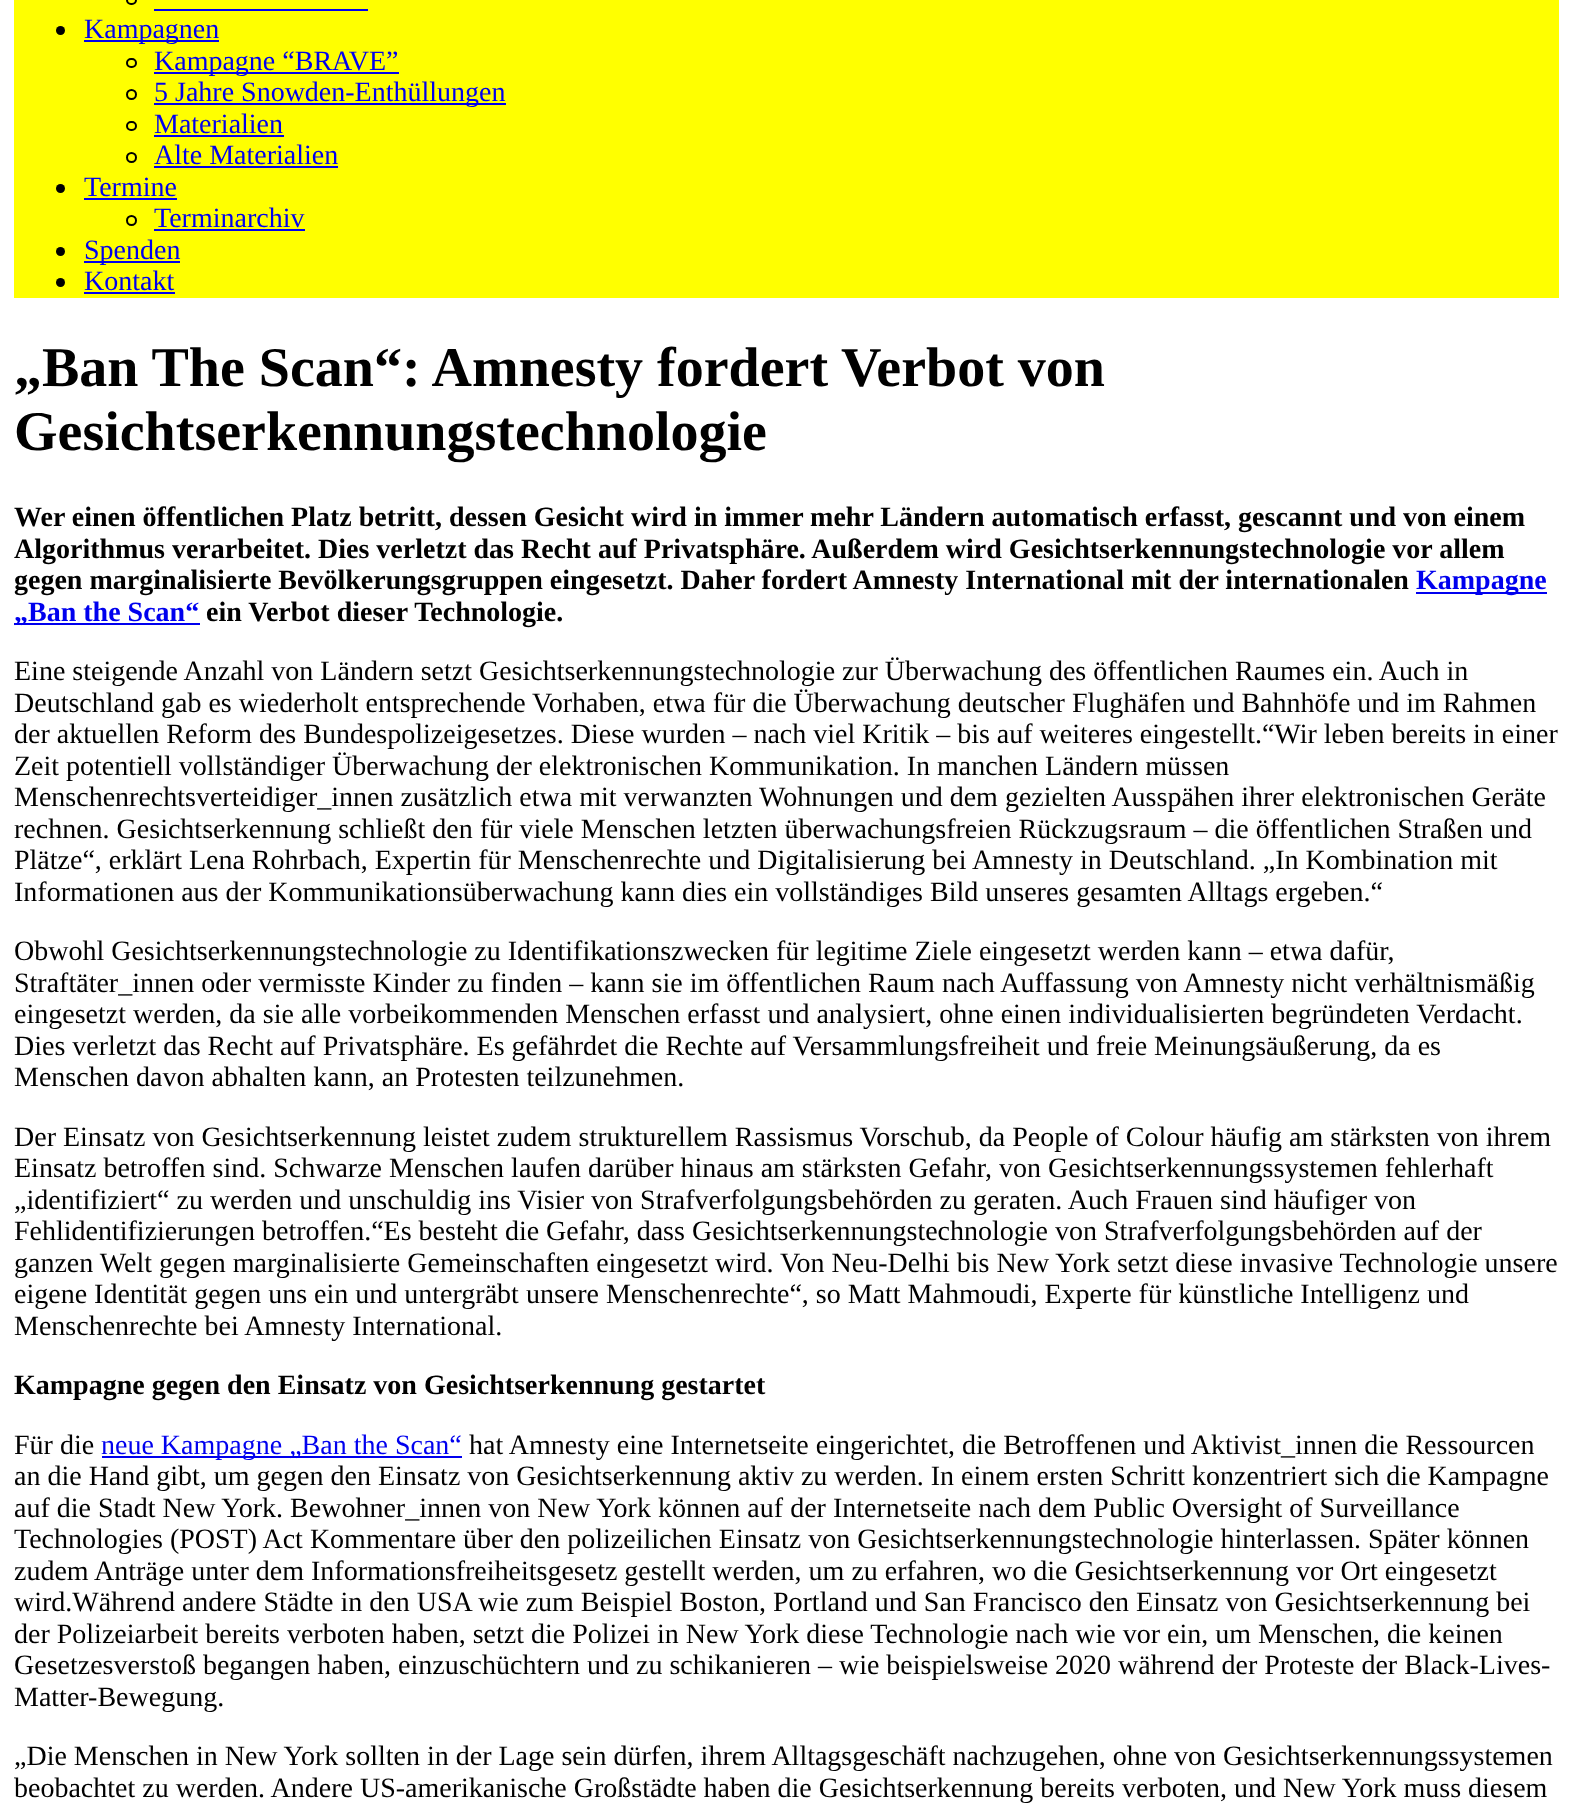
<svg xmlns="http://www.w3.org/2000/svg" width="1573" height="1807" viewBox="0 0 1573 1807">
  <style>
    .t1 { font: 28px Liberation Serif; fill: #00e; }
    .t2 { font: bold 56px Liberation Serif; fill: #000; }
    .t3 { font: bold 28px Liberation Serif; fill: #000; }
    .t4 { font: bold 28px Liberation Serif; fill: #00e; }
    .t5 { font: 28px Liberation Serif; fill: #000; }
  </style>
  <rect width="100%" height="100%" fill="#fff"/>
  <rect x="14" y="0" width="1545" height="298" fill="#ff0"/>
  <rect x="127" y="-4" width="9" height="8" rx="4" fill="none" stroke="#000" stroke-width="2"/>
  <rect x="154" y="9" width="214" height="2" fill="#00e"/>
  <circle cx="60.5" cy="30.5" r="4.5" fill="#000"/>
  <rect x="84" y="40" width="135" height="2" fill="#00e"/>
  <text x="84" y="38" class="t1">Kampagnen</text>
  <rect x="127" y="59" width="9" height="8" rx="4" fill="none" stroke="#000" stroke-width="2"/>
  <rect x="154" y="72" width="245" height="2" fill="#00e"/>
  <text x="154" y="70" class="t1">Kampagne “BRAVE”</text>
  <circle cx="131.5" cy="94.5" r="4.5" fill="none" stroke="#000" stroke-width="2"/>
  <rect x="154" y="103" width="352" height="2" fill="#00e"/>
  <text x="154" y="101" class="t1">5 Jahre Snowden-Enthüllungen</text>
  <rect x="127" y="122" width="9" height="8" rx="4" fill="none" stroke="#000" stroke-width="2"/>
  <text x="154" y="133" class="t1">Materialien</text>
  <rect x="154" y="135" width="130" height="2" fill="#00e"/>
  <circle cx="131.5" cy="157.5" r="4.5" fill="none" stroke="#000" stroke-width="2"/>
  <text x="154" y="164" class="t1">Alte Materialien</text>
  <rect x="154" y="166" width="184" height="2" fill="#00e"/>
  <circle cx="60.5" cy="188.5" r="4.5" fill="#000"/>
  <text x="84" y="196" class="t1">Termine</text>
  <rect x="84" y="198" width="93" height="2" fill="#00e"/>
  <circle cx="131.5" cy="220.5" r="4.5" fill="none" stroke="#000" stroke-width="2"/>
  <text x="154" y="227" class="t1">Terminarchiv</text>
  <rect x="154" y="229" width="151" height="2" fill="#00e"/>
  <circle cx="60.5" cy="251.5" r="4.5" fill="#000"/>
  <rect x="84" y="261" width="96" height="2" fill="#00e"/>
  <text x="84" y="259" class="t1">Spenden</text>
  <circle cx="60.5" cy="282.5" r="4.5" fill="#000"/>
  <text x="84" y="290" class="t1">Kontakt</text>
  <rect x="84" y="292" width="91" height="2" fill="#00e"/>
  <text x="14" y="386" class="t2">„Ban The Scan“: Amnesty fordert Verbot von</text>
  <text x="14" y="450" class="t2">Gesichtserkennungstechnologie</text>
  <text x="14" y="526" class="t3">Wer einen öffentlichen Platz betritt, dessen Gesicht wird in immer mehr Ländern automatisch erfasst, gescannt und von einem</text>
  <text x="14" y="558" class="t3">Algorithmus verarbeitet. Dies verletzt das Recht auf Privatsphäre. Außerdem wird Gesichtserkennungstechnologie vor allem</text>
  <text x="14" y="589" class="t3">gegen marginalisierte Bevölkerungsgruppen eingesetzt. Daher fordert Amnesty International mit der internationalen</text>
  <rect x="1416" y="592" width="131" height="2" fill="#00e"/>
  <text x="1416" y="589" class="t4">Kampagne</text>
  <rect x="14" y="623" width="186" height="2" fill="#00e"/>
  <text x="14" y="621" class="t4">„Ban the Scan“</text>
  <text x="206" y="621" class="t3">ein Verbot dieser Technologie.</text>
  <text x="14" y="680" class="t5">Eine steigende Anzahl von Ländern setzt Gesichtserkennungstechnologie zur Überwachung des öffentlichen Raumes ein. Auch in</text>
  <text x="14" y="712" class="t5">Deutschland gab es wiederholt entsprechende Vorhaben, etwa für die Überwachung deutscher Flughäfen und Bahnhöfe und im Rahmen</text>
  <text x="14" y="743" class="t5">der aktuellen Reform des Bundespolizeigesetzes. Diese wurden – nach viel Kritik – bis auf weiteres eingestellt.“Wir leben bereits in einer</text>
  <text x="14" y="775" class="t5">Zeit potentiell vollständiger Überwachung der elektronischen Kommunikation. In manchen Ländern müssen</text>
  <text x="14" y="806" class="t5">Menschenrechtsverteidiger_innen zusätzlich etwa mit verwanzten Wohnungen und dem gezielten Ausspähen ihrer elektronischen Geräte</text>
  <text x="14" y="838" class="t5">rechnen. Gesichtserkennung schließt den für viele Menschen letzten überwachungsfreien Rückzugsraum – die öffentlichen Straßen und</text>
  <text x="14" y="869" class="t5">Plätze“, erklärt Lena Rohrbach, Expertin für Menschenrechte und Digitalisierung bei Amnesty in Deutschland. „In Kombination mit</text>
  <text x="14" y="901" class="t5">Informationen aus der Kommunikationsüberwachung kann dies ein vollständiges Bild unseres gesamten Alltags ergeben.“</text>
  <text x="14" y="960" class="t5">Obwohl Gesichtserkennungstechnologie zu Identifikationszwecken für legitime Ziele eingesetzt werden kann – etwa dafür,</text>
  <text x="14" y="992" class="t5">Straftäter_innen oder vermisste Kinder zu finden – kann sie im öffentlichen Raum nach Auffassung von Amnesty nicht verhältnismäßig</text>
  <text x="14" y="1023" class="t5">eingesetzt werden, da sie alle vorbeikommenden Menschen erfasst und analysiert, ohne einen individualisierten begründeten Verdacht.</text>
  <text x="14" y="1055" class="t5">Dies verletzt das Recht auf Privatsphäre. Es gefährdet die Rechte auf Versammlungsfreiheit und freie Meinungsäußerung, da es</text>
  <text x="14" y="1086" class="t5">Menschen davon abhalten kann, an Protesten teilzunehmen.</text>
  <text x="14" y="1146" class="t5">Der Einsatz von Gesichtserkennung leistet zudem strukturellem Rassismus Vorschub, da People of Colour häufig am stärksten von ihrem</text>
  <text x="14" y="1177" class="t5">Einsatz betroffen sind. Schwarze Menschen laufen darüber hinaus am stärksten Gefahr, von Gesichtserkennungssystemen fehlerhaft</text>
  <text x="14" y="1209" class="t5">„identifiziert“ zu werden und unschuldig ins Visier von Strafverfolgungsbehörden zu geraten. Auch Frauen sind häufiger von</text>
  <text x="14" y="1240" class="t5">Fehlidentifizierungen betroffen.“Es besteht die Gefahr, dass Gesichtserkennungstechnologie von Strafverfolgungsbehörden auf der</text>
  <text x="14" y="1272" class="t5">ganzen Welt gegen marginalisierte Gemeinschaften eingesetzt wird. Von Neu-Delhi bis New York setzt diese invasive Technologie unsere</text>
  <text x="14" y="1303" class="t5">eigene Identität gegen uns ein und untergräbt unsere Menschenrechte“, so Matt Mahmoudi, Experte für künstliche Intelligenz und</text>
  <text x="14" y="1335" class="t5">Menschenrechte bei Amnesty International.</text>
  <text x="14" y="1394" class="t3">Kampagne gegen den Einsatz von Gesichtserkennung gestartet</text>
  <text x="14" y="1454" class="t5">Für die</text>
  <rect x="102" y="1456" width="360" height="2" fill="#00e"/>
  <text x="101" y="1454" class="t1">neue Kampagne „Ban the Scan“</text>
  <text x="469" y="1454" class="t5">hat Amnesty eine Internetseite eingerichtet, die Betroffenen und Aktivist_innen die Ressourcen</text>
  <text x="14" y="1485" class="t5">an die Hand gibt, um gegen den Einsatz von Gesichtserkennung aktiv zu werden. In einem ersten Schritt konzentriert sich die Kampagne</text>
  <text x="14" y="1517" class="t5">auf die Stadt New York. Bewohner_innen von New York können auf der Internetseite nach dem Public Oversight of Surveillance</text>
  <text x="14" y="1548" class="t5">Technologies (POST) Act Kommentare über den polizeilichen Einsatz von Gesichtserkennungstechnologie hinterlassen. Später können</text>
  <text x="14" y="1580" class="t5">zudem Anträge unter dem Informationsfreiheitsgesetz gestellt werden, um zu erfahren, wo die Gesichtserkennung vor Ort eingesetzt</text>
  <text x="14" y="1611" class="t5">wird.Während andere Städte in den USA wie zum Beispiel Boston, Portland und San Francisco den Einsatz von Gesichtserkennung bei</text>
  <text x="14" y="1643" class="t5">der Polizeiarbeit bereits verboten haben, setzt die Polizei in New York diese Technologie nach wie vor ein, um Menschen, die keinen</text>
  <text x="14" y="1674" class="t5">Gesetzesverstoß begangen haben, einzuschüchtern und zu schikanieren – wie beispielsweise 2020 während der Proteste der Black-Lives-</text>
  <text x="14" y="1706" class="t5">Matter-Bewegung.</text>
  <text x="14" y="1765" class="t5">„Die Menschen in New York sollten in der Lage sein dürfen, ihrem Alltagsgeschäft nachzugehen, ohne von Gesichtserkennungssystemen</text>
  <text x="14" y="1797" class="t5">beobachtet zu werden. Andere US-amerikanische Großstädte haben die Gesichtserkennung bereits verboten, und New York muss diesem</text>
</svg>
